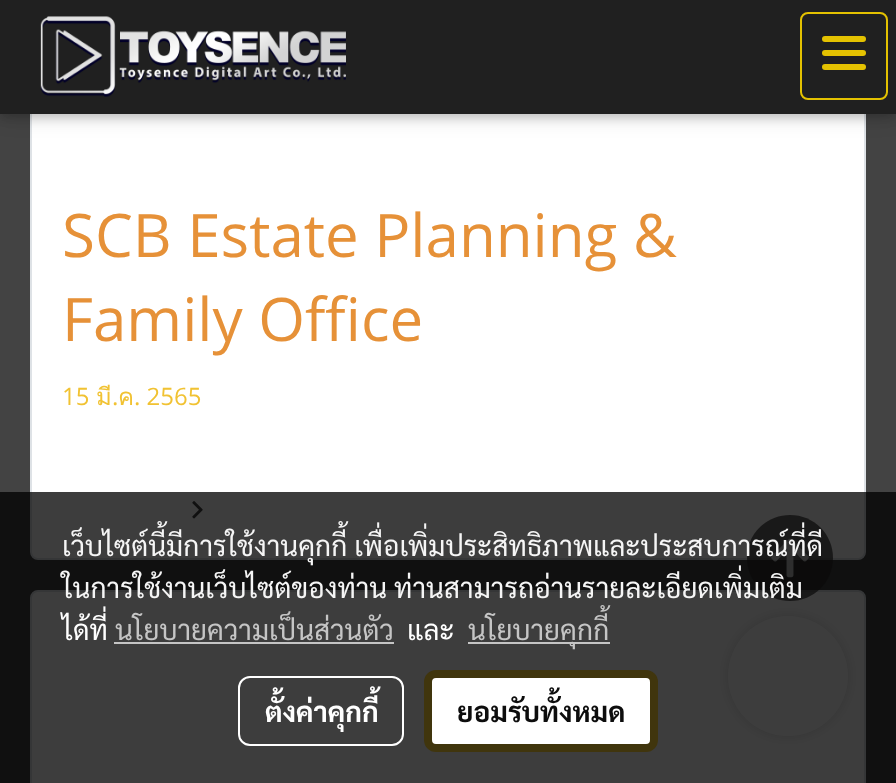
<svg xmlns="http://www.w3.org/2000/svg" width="896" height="783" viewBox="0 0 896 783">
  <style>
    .t1 { font: 60px Open Sans; fill: #e69138; }
    .t2 { font: 24px Open Sans; fill: #f1c232; }
    .t3 { font: 24px Loma; fill: #f1c232; }
    .t4 { font: 28px Sarabun; fill: #f5f5f5; }
    .t5 { font: 28px Sarabun; fill: #fff; }
    .t6 { font: 28px Sarabun; fill: #c5c5c5; }
    .t7 { font: bold 28px Sarabun; fill: #fff; }
    .t8 { font: bold 28px Sarabun; fill: #0d0d0d; }
  </style>
  <rect width="100%" height="100%" fill="#434343"/>
  <rect x="31" y="-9" width="834" height="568" rx="7" fill="#fff" stroke="#dee2e6" stroke-width="2"/>
  <rect x="0" y="4" width="896" height="114" fill="#0000001f" filter="blur(10px)"/>
  <rect x="0" y="4" width="896" height="114" fill="#00000029" filter="blur(5px)"/>
  <rect x="0" y="0" width="896" height="114" fill="#202020"/>
  <image x="40" y="16" width="306" height="81" href="images/1.png"/>
  <rect x="801" y="13" width="86" height="86" rx="7" fill="none" stroke="#e4c201" stroke-width="2"/>
  <rect x="822" y="50" width="44" height="6" rx="3" fill="#e4c201"/>
  <rect x="822" y="36" width="44" height="6" rx="3" fill="#e4c201"/>
  <rect x="822" y="64" width="44" height="6" rx="3" fill="#e4c201"/>
  <text x="62" y="257" class="t1">SCB Estate Planning &amp;</text>
  <text x="62" y="341" class="t1">Family Office</text>
  <text x="62" y="405" class="t2">15</text>
  <text x="96" y="405" class="t3">มี</text>
  <text x="112" y="405" class="t2">.</text>
  <text x="118" y="405" class="t3">ค</text>
  <text x="134" y="405" class="t2">. 2565</text>
  <image x="192" y="501" width="11" height="18" href="images/2.png"/>
  <rect x="31" y="591" width="834" height="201" rx="7" fill="#fff" stroke="#dee2e6" stroke-width="2"/>
  <rect x="728" y="616" width="120" height="120" rx="60" fill="#00000024" filter="blur(7px)"/>
  <path d="M790 515C766 515 747 534 747 558C747 582 766 601 790 601C814 601 833 582 833 558C833 534 814 515 790 515Z" fill="#2b2a2ab3"/>
  <image x="771" y="538" width="38" height="40" href="images/3.png"/>
  <circle cx="788" cy="676" r="60" fill="#fff"/>
  <rect x="0" y="492" width="896" height="291" fill="#000000c2"/>
  <text x="62" y="556" class="t4">เว็บไซต์นี้มีการใช้งานคุกกี้ เพื่อเพิ่มประสิทธิภาพและประสบการณ์ที่ดี</text>
  <text x="62" y="598" class="t4">ในการใช้งานเว็บไซต์ของท่าน ท่านสามารถอ่านรายละเอียดเพิ่มเติม</text>
  <text x="62" y="640" class="t5">ได้ที่</text>
  <text x="115" y="640" class="t6">นโยบายความเป็นส่วนตัว</text>
  <rect x="114" y="642" width="280" height="2" fill="#c5c5c5"/>
  <text x="407" y="640" class="t5">และ</text>
  <rect x="468" y="642" width="142" height="2" fill="#c5c5c5"/>
  <text x="468" y="640" class="t6">นโยบายคุกกี้</text>
  <rect x="239" y="677" width="164" height="68" rx="11" fill="none" stroke="#fff" stroke-width="2"/>
  <text x="265" y="722" class="t7">ตั้งค่าคุกกี้</text>
  <rect x="428" y="674" width="226" height="74" rx="8" fill="#fff" stroke="#40350d" stroke-width="8"/>
  <text x="457" y="722" class="t8">ยอมรับทั้งหมด</text>
</svg>
